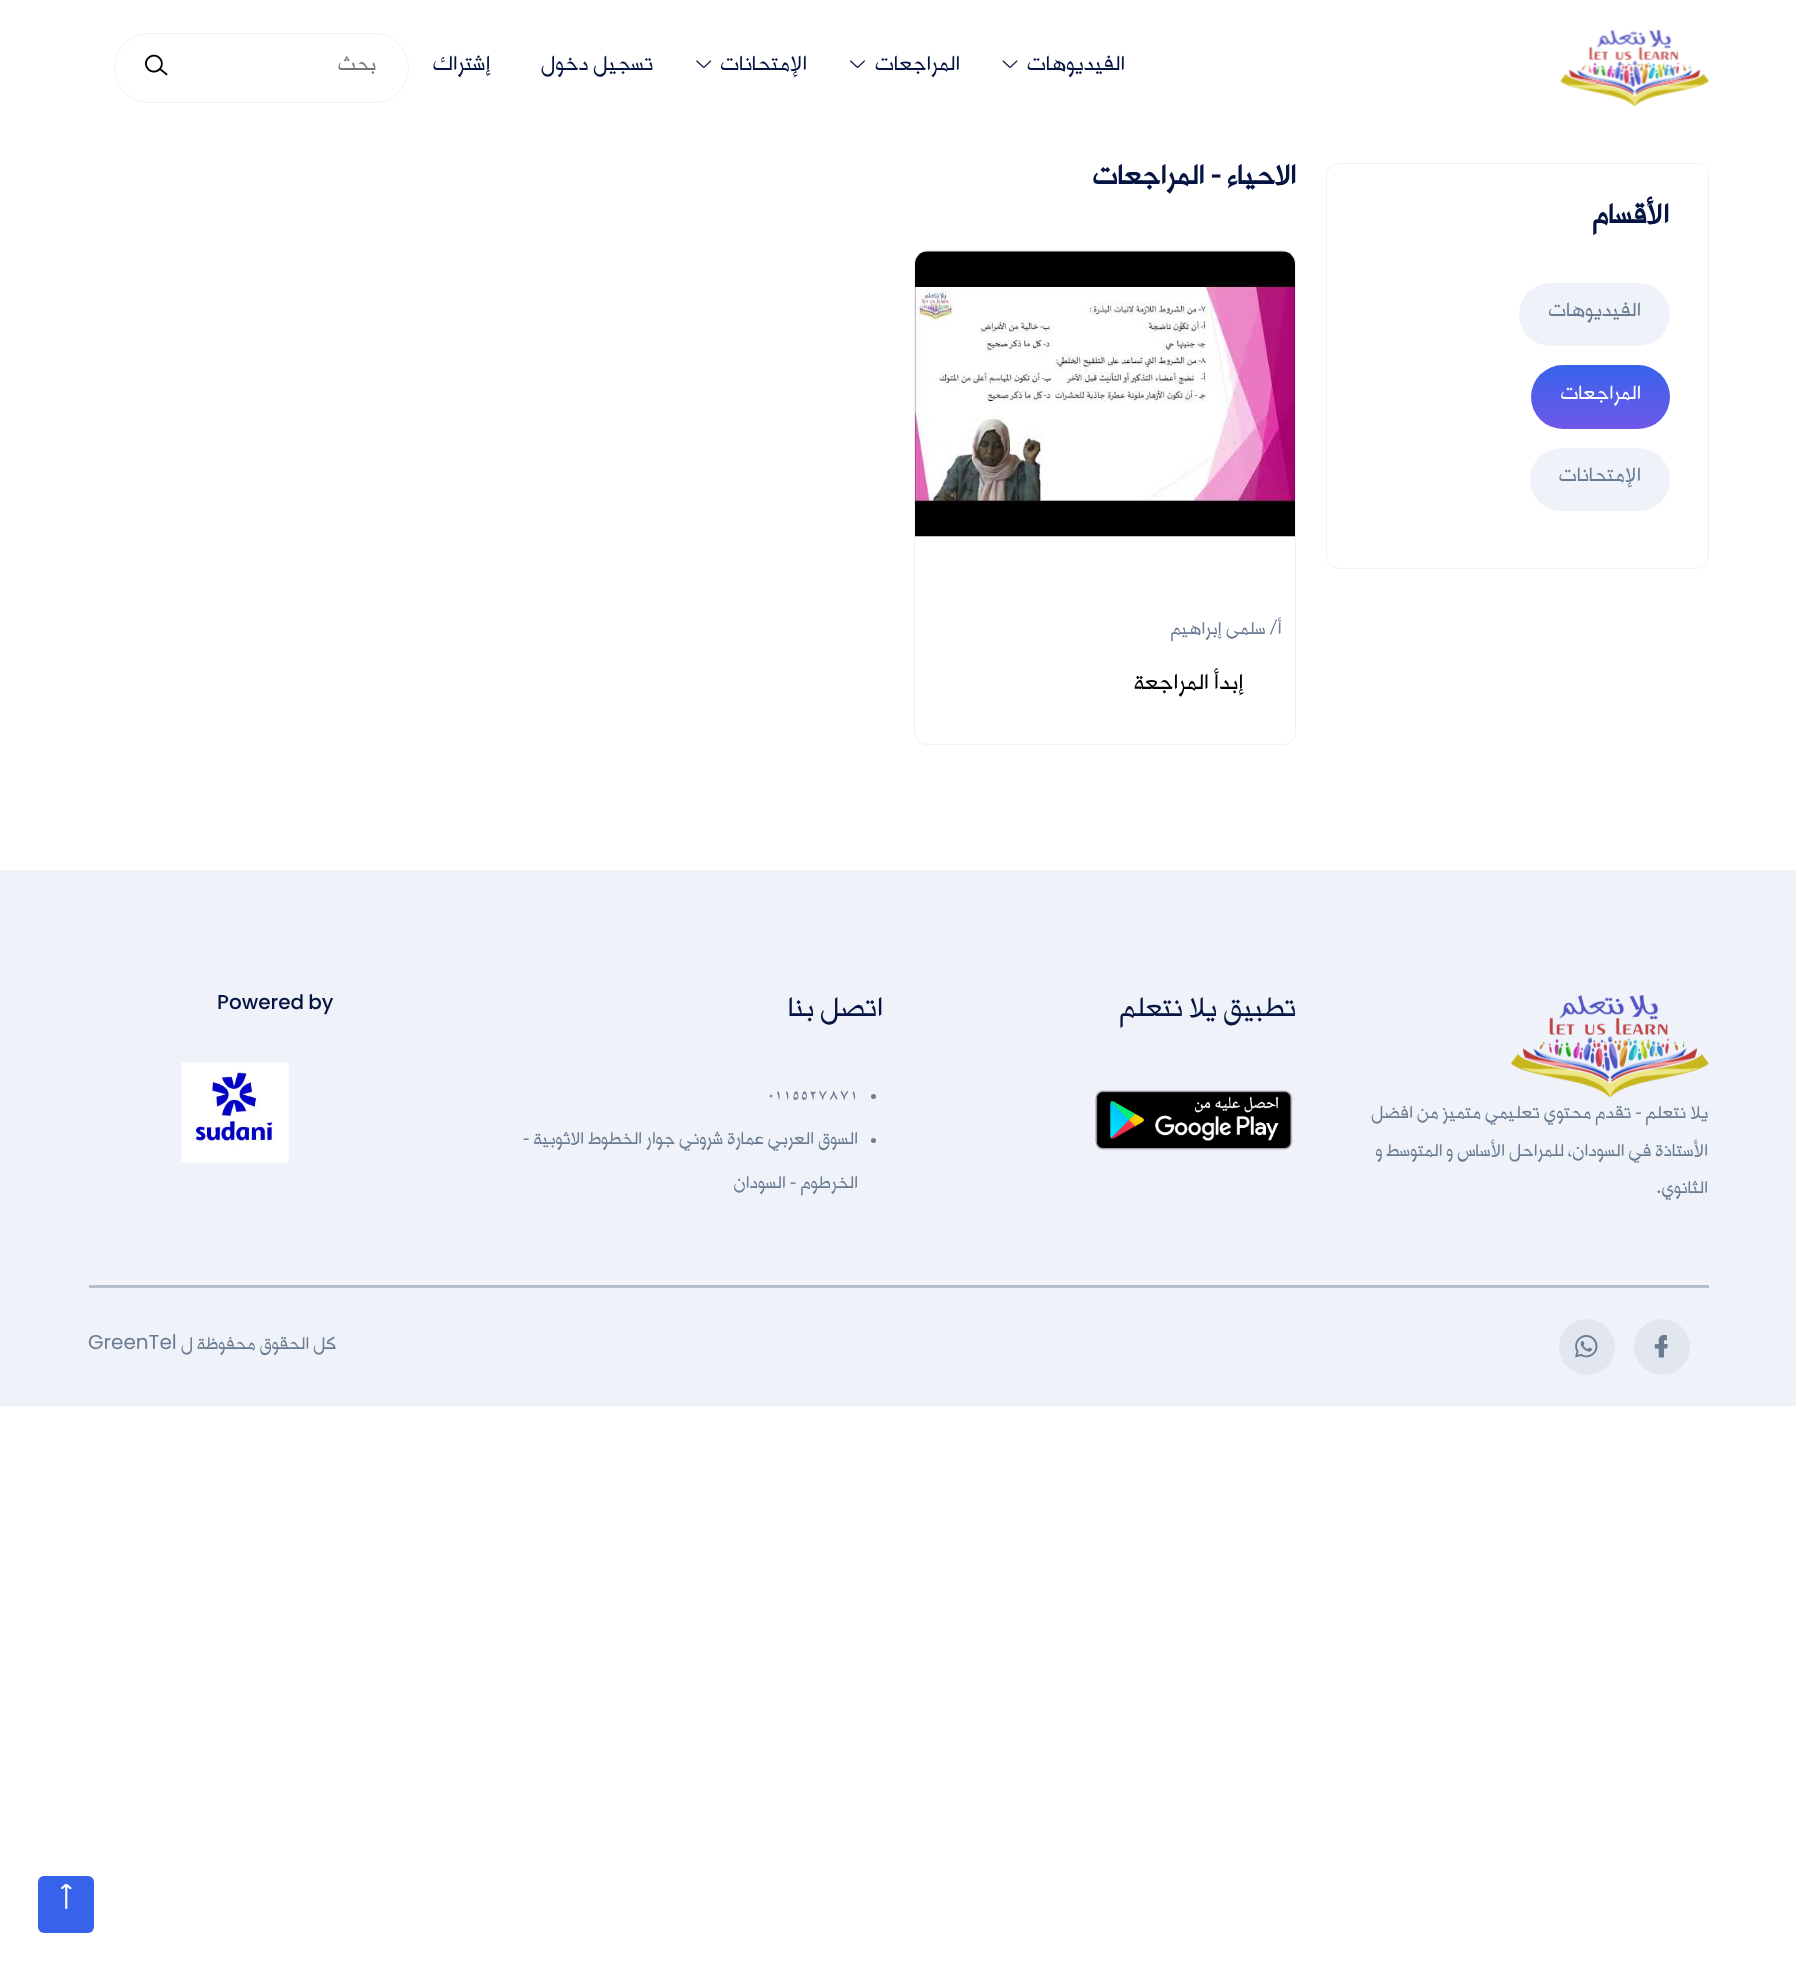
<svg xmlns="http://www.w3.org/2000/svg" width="1796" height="1970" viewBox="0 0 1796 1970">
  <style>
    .t1 { font: 23.75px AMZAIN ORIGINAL; direction: rtl; fill: #051441; }
    .t2 { font: 22.5px AMZAIN ORIGINAL; direction: rtl; fill: #757575; }
    .t3 { font: bold 31.25px AMZAIN ORIGINAL; direction: rtl; fill: #051441; }
    .t4 { font: 22.5px AMZAIN ORIGINAL; direction: rtl; fill: #6a7c92; }
    .t5 { font: 22.5px AMZAIN ORIGINAL; direction: rtl; fill: #fff; }
    .t6 { font: 20px AMZAIN ORIGINAL; direction: rtl; fill: #6a7c92; }
    .t7 { font: 25px AMZAIN ORIGINAL; direction: rtl; fill: #000; }
    .t8 { font: 31.25px AMZAIN ORIGINAL; direction: rtl; fill: #051441; }
    .t9 { font: 20px AMZAIN ORIGINAL; fill: #6a7c92; }
    .t10 { font: 500 20px Poppins; fill: #051441; }
    .t11 { font: 20px Poppins; fill: #6a7c92; }
  </style>
  <defs>
    <linearGradient id="g1" gradientUnits="userSpaceOnUse" x1="1601" y1="365" x2="1601" y2="429"><stop offset="0" stop-color="#3763eb"/><stop offset="1" stop-color="#6f58e8"/></linearGradient>
  </defs>
  <rect width="100%" height="100%" fill="#fff"/>
  <image x="1559" y="29" width="150" height="78" href="images/1.png"/>
  <text x="1125" y="70" class="t1">الفيديوهات</text>
  <image x="1002" y="60" width="16" height="8" href="images/2.png"/>
  <text x="960" y="70" class="t1">المراجعات</text>
  <image x="850" y="60" width="15" height="8" href="images/3.png"/>
  <text x="807" y="70" class="t1">الإمتحانات</text>
  <image x="696" y="60" width="16" height="8" href="images/4.png"/>
  <text x="653" y="70" class="t1">تسجيل دخول</text>
  <text x="491" y="70" class="t1">إشتراك</text>
  <rect x="114.5" y="33.5" width="294" height="69" rx="34.5" fill="none" stroke="#f4eefb"/>
  <text x="376" y="70" class="t2">بحث</text>
  <image x="145" y="54" width="23" height="22" href="images/5.png"/>
  <rect x="1326.5" y="163.5" width="382" height="405" rx="12.5" fill="none" stroke="#f4eefb"/>
  <text x="1669" y="223" class="t3">الأقسام</text>
  <rect x="1519" y="283" width="151" height="63" rx="31.5" fill="#eff2f9"/>
  <text x="1641" y="316" class="t4">الفيديوهات</text>
  <rect x="1531" y="365" width="139" height="64" rx="32" fill="url(#g1)"/>
  <text x="1641" y="399" class="t5">المراجعات</text>
  <rect x="1530" y="448" width="140" height="63" rx="31.5" fill="#eff2f9"/>
  <text x="1641" y="481" class="t4">الإمتحانات</text>
  <text x="1296" y="184" class="t3">الاحياء - المراجعات</text>
  <rect x="914.5" y="250.5" width="381" height="494" rx="12.5" fill="none" stroke="#f4eefb"/>
  <image x="915" y="251" width="380" height="286" href="images/6.png"/>
  <text x="1282" y="634" class="t6">أ/ سلمى إبراهيم</text>
  <text x="1244" y="689" class="t7">إبدأ المراجعة</text>
  <rect x="0" y="870" width="1796" height="536" fill="#eff2f9"/>
  <text x="1296" y="1016" class="t8">تطبيق يلا نتعلم</text>
  <image x="1095" y="1090" width="198" height="60" href="images/7.png"/>
  <text x="883" y="1016" class="t8">اتصل بنا</text>
  <circle cx="873.5" cy="1096.5" r="2.5" fill="#6a7c92"/>
  <text x="768" y="1100" class="t9">0115527871</text>
  <circle cx="873.5" cy="1140.5" r="2.5" fill="#6a7c92"/>
  <text x="858" y="1144" class="t6">السوق العربي عمارة شروني جوار الخطوط الاثوبية -</text>
  <text x="858" y="1188" class="t6">الخرطوم - السودان</text>
  <text x="217" y="1009" word-spacing="-1" class="t10">Powered by</text>
  <image x="181" y="1062" width="108" height="101" href="images/8.png"/>
  <image x="1510" y="995" width="199" height="103" href="images/9.png"/>
  <text x="1708" y="1118" class="t6">يلا نتعلم - تقدم محتوي تعليمي متميز من افضل</text>
  <text x="1708" y="1156" class="t6">الأستاذة في السودان،</text>
  <text x="1564" y="1156" class="t6">للمراحل الأساس و المتوسط و</text>
  <text x="1708" y="1193" class="t6">الثانوي.</text>
  <rect x="89" y="1285" width="1620" height="3" fill="#b4becc"/>
  <circle cx="1662" cy="1347" r="28" fill="#e2e6ef"/>
  <image x="1654" y="1335" width="14" height="23" href="images/10.png"/>
  <circle cx="1587" cy="1347" r="28" fill="#e2e6ef"/>
  <image x="1575" y="1335" width="23" height="23" href="images/11.png"/>
  <text x="336" y="1349" class="t6">كل الحقوق محفوظة ل</text>
  <text x="88" y="1349" class="t11">GreenTel</text>
  <rect x="38" y="1876" width="56" height="57" rx="6" fill="#3763eb"/>
  <image x="61" y="1884" width="11" height="25" href="images/12.png"/>
</svg>
